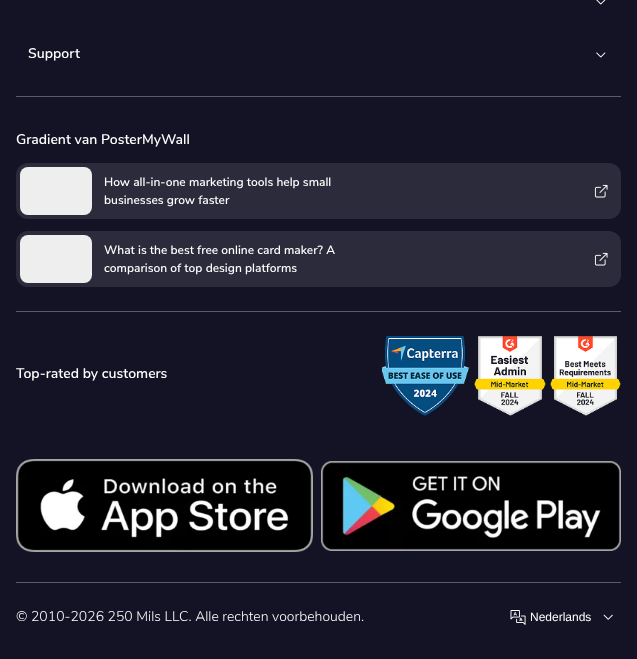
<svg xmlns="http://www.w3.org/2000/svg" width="637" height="659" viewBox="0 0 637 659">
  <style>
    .t1 { font: 600 14px Nunito Sans; fill: #fff; }
    .t2 { font: 600 12px Nunito Sans; fill: #fff; }
    .t3 { font: 300 14px Nunito Sans; fill: #fff; }
    .t4 { font: 12px Liberation Sans; fill: #fff; }
  </style>
  <rect width="100%" height="100%" fill="#141325"/>
  <image x="596" y="0" width="10" height="5" href="images/1.png"/>
  <text x="28" y="58" class="t1">Support</text>
  <image x="596" y="52" width="10" height="6" href="images/2.png"/>
  <rect x="16" y="96" width="605" height="1" fill="#5b5a66"/>
  <text x="16" y="144" class="t1">Gradient van PosterMyWall</text>
  <rect x="16" y="163" width="605" height="56" rx="12" fill="#2c2b3b"/>
  <image x="20" y="167" width="72" height="48" href="images/3.png"/>
  <text x="104" y="186" class="t2">How all-in-one marketing tools help small</text>
  <text x="104" y="204" class="t2">businesses grow faster</text>
  <image x="594" y="184" width="14" height="14" href="images/4.png"/>
  <rect x="16" y="231" width="605" height="56" rx="12" fill="#2c2b3b"/>
  <image x="20" y="235" width="72" height="48" href="images/3.png"/>
  <text x="104" y="254" class="t2">What is the best free online card maker? A</text>
  <text x="104" y="272" class="t2">comparison of top design platforms</text>
  <image x="594" y="252" width="14" height="14" href="images/4.png"/>
  <rect x="16" y="311" width="605" height="1" fill="#5b5a66"/>
  <text x="16" y="378" class="t1">Top-rated by customers</text>
  <image x="382" y="336" width="88" height="80" href="images/5.png"/>
  <image x="474" y="336" width="72" height="80" href="images/6.png"/>
  <image x="550" y="336" width="71" height="80" href="images/7.png"/>
  <rect x="16" y="582" width="605" height="1" fill="#5b5a66"/>
  <image x="16" y="459" width="297" height="93" href="images/8.png"/>
  <image x="321" y="461" width="300" height="90" href="images/9.png"/>
  <text x="16" y="621" class="t3">© 2010-2026 250 Mils LLC. Alle rechten voorbehouden.</text>
  <image x="510" y="610" width="16" height="15" href="images/10.png"/>
  <text x="530" y="621" class="t4">Nederlands</text>
  <image x="603" y="614" width="10" height="6" href="images/11.png"/>
</svg>
